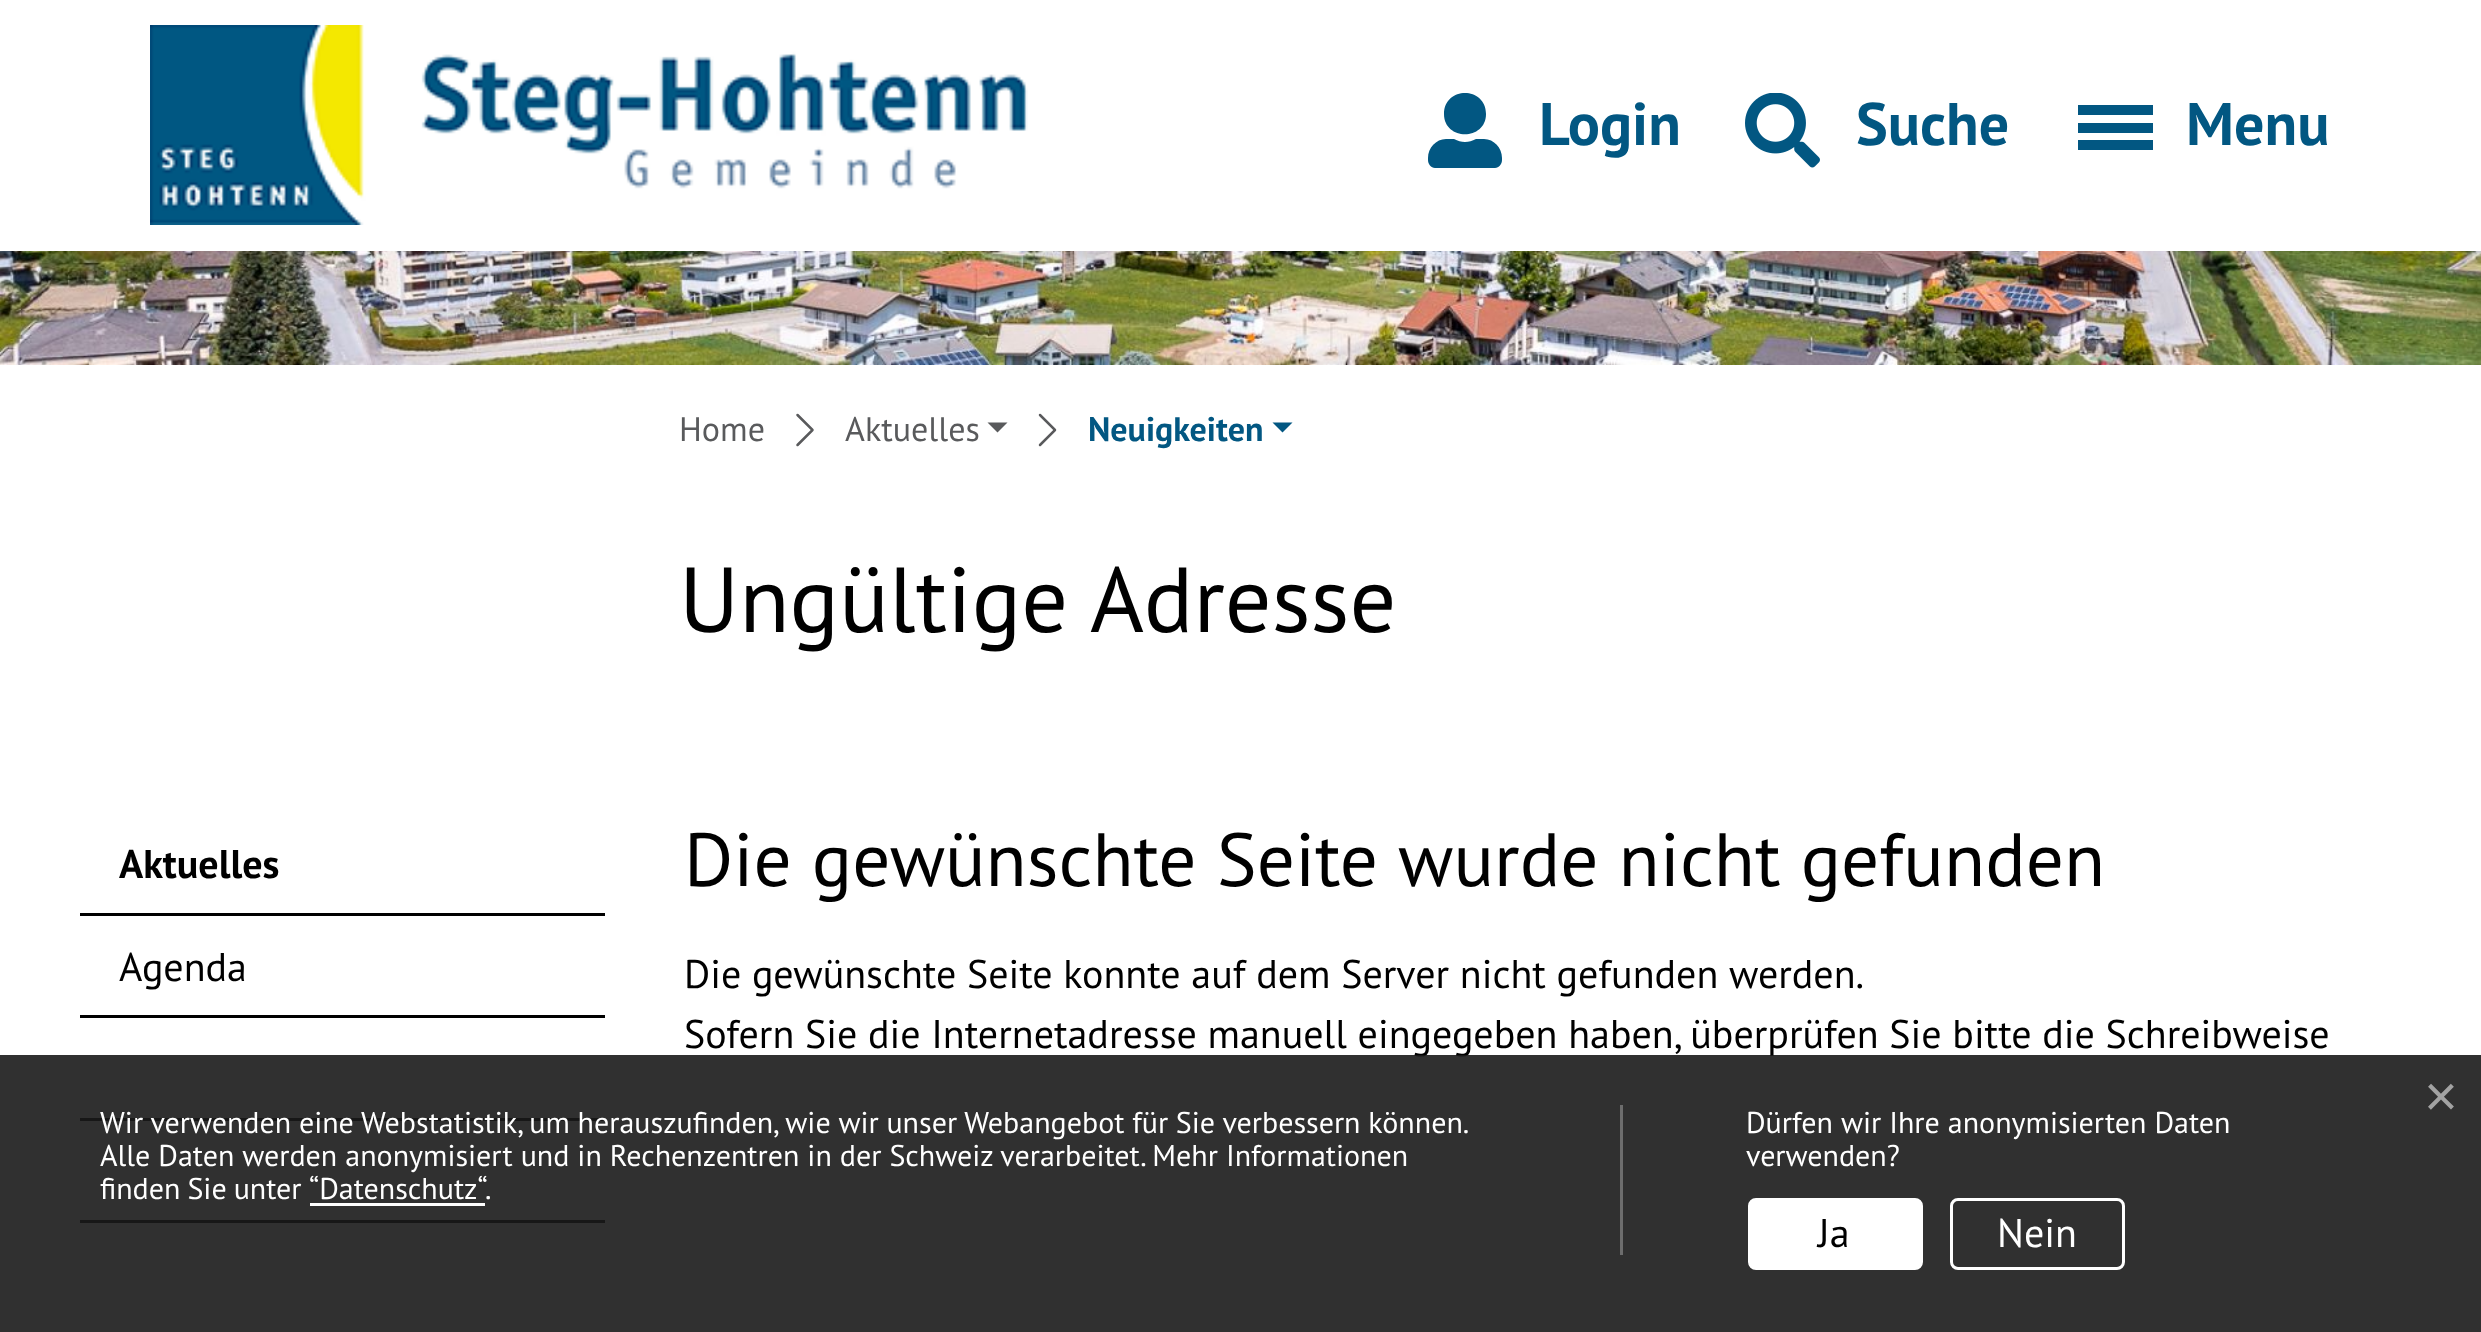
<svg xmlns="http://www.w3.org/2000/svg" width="2481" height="1332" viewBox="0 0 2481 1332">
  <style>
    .t1 { font: bold 60px PT Sans; fill: #025782; }
    .t2 { font: 34px PT Sans; fill: #595a5c; }
    .t3 { font: bold 34px PT Sans; fill: #025782; }
    .t4 { font: 92.25px PT Sans; fill: #000; }
    .t5 { font: bold 40px PT Sans; fill: #000; }
    .t6 { font: 40px PT Sans; fill: #000; }
    .t7 { font: 75.3px PT Sans; fill: #000; }
    .t8 { font: 58px Liberation Sans; fill: #a2a2a2; }
    .t9 { font: 30px PT Sans; fill: #fff; }
    .t10 { font: 40px PT Sans; fill: #fff; }
  </style>
  <rect width="100%" height="100%" fill="#fff"/>
  <image x="150" y="25" width="878" height="200" href="images/1.png"/>
  <path d="M1486 114C1486 141 1444 141 1444 114C1444 86 1486 86 1486 114ZM1476 139H1484C1494 139 1502 148 1502 158V160C1502 164 1499 168 1495 168H1435C1431 168 1428 164 1428 160V158C1428 148 1436 139 1446 139H1454C1458 141 1461 142 1465 142C1469 142 1472 141 1476 139Z" fill="#025782" fill-rule="evenodd"/>
  <text x="1539" y="145" class="t1">Login</text>
  <image x="1745" y="93" width="75" height="75" href="images/2.png"/>
  <text x="1856" y="145" class="t1">Suche</text>
  <rect x="2078" y="105" width="75" height="10" fill="#025782"/>
  <rect x="2078" y="123" width="75" height="10" fill="#025782"/>
  <rect x="2078" y="140" width="75" height="10" fill="#025782"/>
  <text x="2186" y="145" class="t1">Menu</text>
  <image x="0" y="251" width="2481" height="114" href="images/3.png"/>
  <text x="679" y="441" class="t2">Home</text>
  <image x="796" y="413" width="18" height="34" href="images/4.png"/>
  <text x="845" y="441" class="t2">Aktuelles</text>
  <path d="M987.5 422.5H1007.5L997.5 432.5Z" fill="#595a5c"/>
  <image x="1038" y="413" width="19" height="34" href="images/5.png"/>
  <text x="1088" y="441" class="t3">Neuigkeiten</text>
  <path d="M1272.5 422.5H1292.5L1282.5 432.5Z" fill="#025782"/>
  <text x="679" y="632" class="t4">Ungültige Adresse</text>
  <rect x="80" y="913" width="525" height="3" fill="#000"/>
  <text x="119" y="878" class="t5">Aktuelles</text>
  <rect x="80" y="1015" width="525" height="3" fill="#000"/>
  <text x="119" y="981" class="t6">Agenda</text>
  <rect x="80" y="1118" width="525" height="3" fill="#000"/>
  <rect x="80" y="1220" width="525" height="3" fill="#000"/>
  <text x="684" y="886" class="t7">Die gewünschte Seite wurde nicht gefunden</text>
  <text x="684" y="988" class="t6">Die gewünschte Seite konnte auf dem Server nicht gefunden werden.</text>
  <text x="684" y="1048" class="t6">Sofern Sie die Internetadresse manuell eingegeben haben, überprüfen Sie bitte die Schreibweise</text>
  <rect x="0" y="1055" width="2481" height="277" fill="#191919e6"/>
  <text x="2424" y="1116" class="t8">×</text>
  <rect x="1620" y="1105" width="3" height="150" fill="#6d6d6d"/>
  <text x="100" y="1133" word-spacing="-0.25" class="t9">Wir verwenden eine Webstatistik, um herauszufinden, wie wir unser Webangebot für Sie verbessern können.</text>
  <text x="100" y="1166" class="t9">Alle Daten werden anonymisiert und in Rechenzentren in der Schweiz verarbeitet. Mehr Informationen</text>
  <text x="100" y="1199" word-spacing="-1" class="t9">finden Sie unter</text>
  <text x="309" y="1199" class="t9">“Datenschutz“</text>
  <rect x="310" y="1203" width="175" height="3" fill="#fff"/>
  <text x="485" y="1199" class="t9">.</text>
  <text x="1746" y="1133" class="t9">Dürfen wir Ihre anonymisierten Daten</text>
  <text x="1746" y="1166" class="t9">verwenden?</text>
  <rect x="1749.5" y="1199.5" width="172" height="69" rx="6.5" fill="#fff" stroke="#fff" stroke-width="3"/>
  <text x="1818" y="1247" class="t6">Ja</text>
  <rect x="1951.5" y="1199.5" width="172" height="69" rx="6.5" fill="none" stroke="#fff" stroke-width="3"/>
  <text x="1997" y="1247" class="t10">Nein</text>
</svg>
